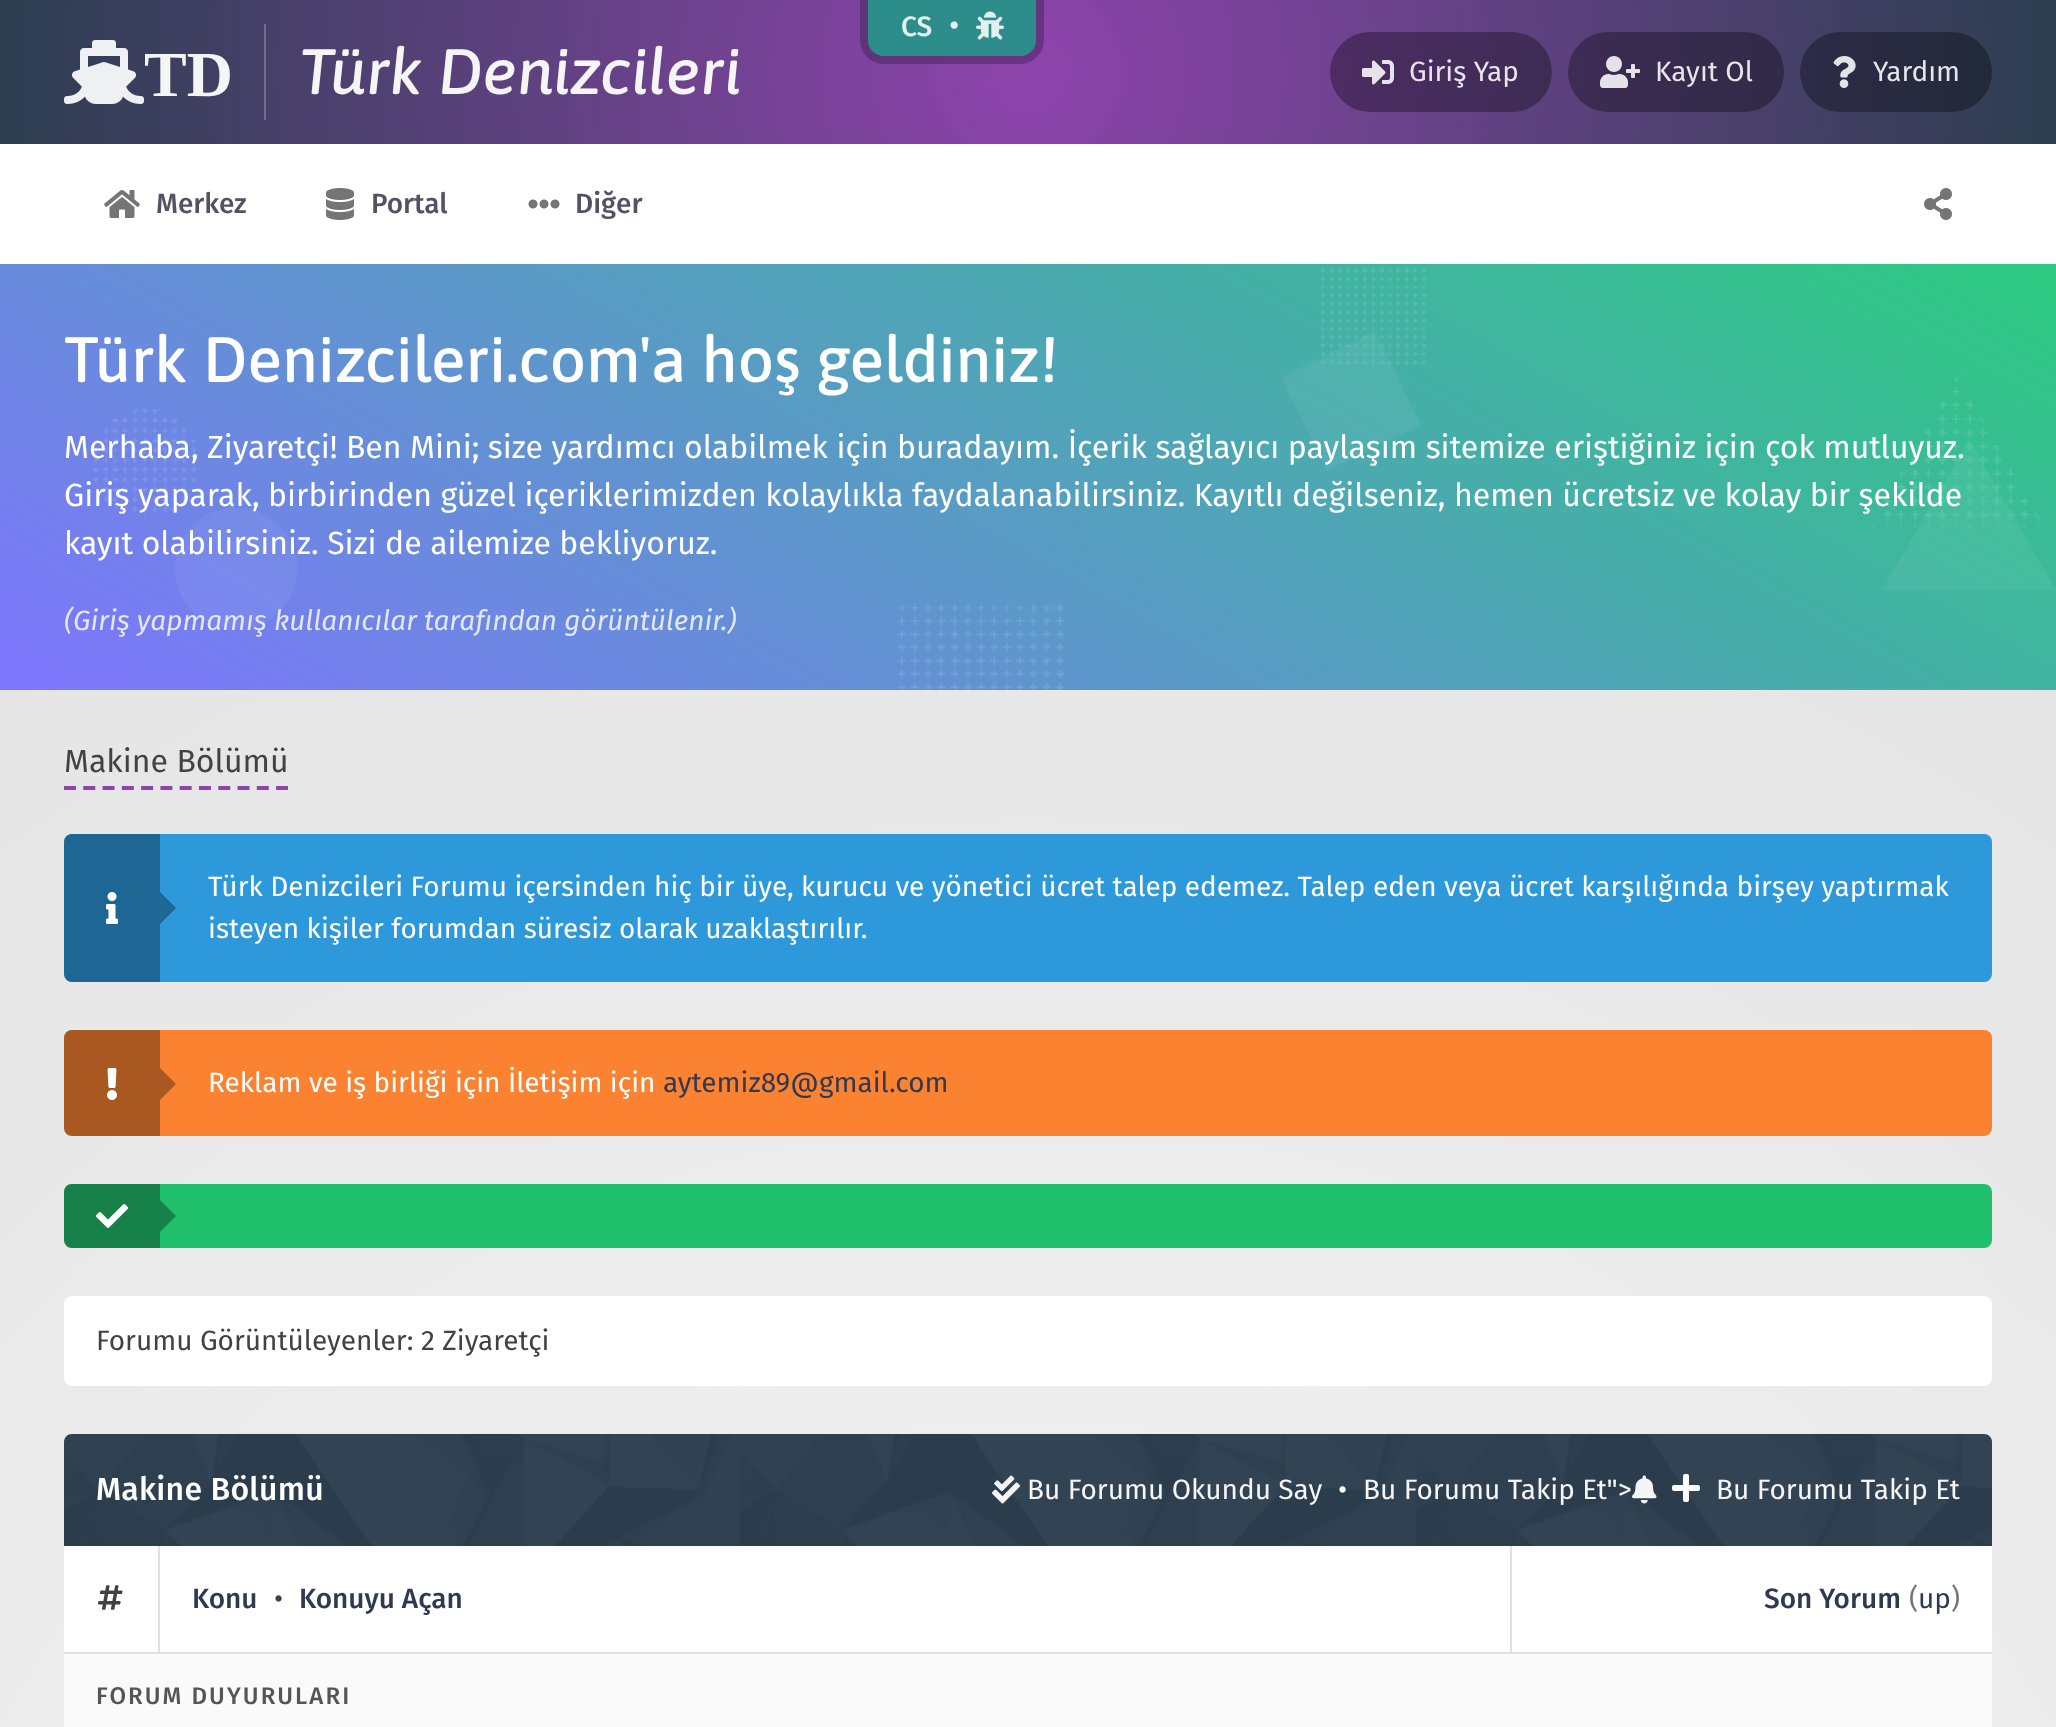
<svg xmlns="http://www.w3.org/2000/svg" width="2056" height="1727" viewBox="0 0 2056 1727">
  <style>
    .t1 { font: 500 28px Fira Sans; fill: #e4f0f0; }
    .t2 { font: 32px Fira Sans; fill: #e4f0f0; }
    .t3 { font: bold 64px Liberation Serif; fill: #f5f5f5; }
    .t4 { font: italic 500 64px Asap; fill: #f5f5f5; }
    .t5 { font: 28px Fira Sans; fill: #e7e4ea; }
    .t6 { font: 500 28px Fira Sans; fill: #515365; }
    .t7 { font: 500 64px Asap; fill: #fff; }
    .t8 { font: 32px Fira Sans; fill: #fff; }
    .t9 { font: italic 28px Fira Sans; fill: #e2e7fa; }
    .t10 { font: 32px Fira Sans; fill: #424242; }
    .t11 { font: 28px Fira Sans; fill: #fff; }
    .t12 { font: 28px Fira Sans; fill: #303952; }
    .t13 { font: 28px Fira Sans; fill: #424242; }
    .t14 { font: 500 32px Fira Sans; letter-spacing: 0.25px; fill: #fff; }
    .t15 { font: 28px Fira Sans; fill: #f5f5f5; }
    .t16 { font: 500 28px Fira Sans; fill: #303952; }
    .t17 { font: 28px Fira Sans; fill: #757575; }
    .t18 { font: 500 24px Fira Sans; letter-spacing: 2.1px; fill: #555; }
  </style>
  <defs>
    <radialGradient id="g1" gradientUnits="userSpaceOnUse" cx="1028" cy="2294" r="2514"><stop offset="0" stop-color="#f5f5f5"/><stop offset="1" stop-color="#e0e0e0"/></radialGradient>
    <radialGradient id="g2" gradientUnits="userSpaceOnUse" cx="1028" cy="72" r="1031"><stop offset="0" stop-color="#8e44ad"/><stop offset="1" stop-color="#2c3e50"/></radialGradient>
  </defs>
  <rect width="100%" height="100%" fill="#fff"/>
  <rect x="0" y="264" width="2056" height="1463" fill="url(#g1)"/>
  <rect x="0" y="0" width="2056" height="144" fill="url(#g2)"/>
  <path d="M864-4H1040V40C1040 51 1031 60 1020 60H884C873 60 864 51 864 40Z" fill="none" stroke="#0000003d" stroke-width="8"/>
  <path d="M868 0H1036V40C1036 49 1029 56 1020 56H884C875 56 868 49 868 40Z" fill="#16a085cc"/>
  <text x="901" y="36" class="t1">CS</text>
  <text x="949" y="36" class="t2">•</text>
  <image x="976" y="11" width="28" height="29" href="images/1.png"/>
  <image x="64" y="40" width="80" height="64" href="images/2.png"/>
  <text x="144" y="96" class="t3">TD</text>
  <rect x="264" y="24" width="2" height="96" fill="#726e8c"/>
  <text x="299" y="94" class="t4">Türk Denizcileri</text>
  <rect x="1330" y="32" width="222" height="80" rx="40" fill="#00000052"/>
  <image x="1362" y="60" width="32" height="25" href="images/3.png"/>
  <text x="1409" y="81" class="t5">Giriş Yap</text>
  <rect x="1568" y="32" width="216" height="80" rx="40" fill="#00000052"/>
  <image x="1600" y="56" width="40" height="32" href="images/4.png"/>
  <text x="1655" y="81" class="t5">Kayıt Ol</text>
  <rect x="1800" y="32" width="192" height="80" rx="40" fill="#00000052"/>
  <image x="1833" y="56" width="23" height="32" href="images/5.png"/>
  <text x="1873" y="81" class="t5">Yardım</text>
  <image x="104" y="190" width="36" height="28" href="images/6.png"/>
  <text x="156" y="213" class="t6">Merkez</text>
  <image x="326" y="188" width="28" height="32" href="images/7.png"/>
  <text x="371" y="213" class="t6">Portal</text>
  <image x="528" y="199" width="32" height="10" href="images/8.png"/>
  <text x="575" y="213" class="t6">Diğer</text>
  <image x="1924" y="188" width="28" height="32" href="images/9.png"/>
  <image x="0" y="264" width="2056" height="426" href="images/10.png"/>
  <text x="64" y="382" class="t7">Türk Denizcileri.com'a hoş geldiniz!</text>
  <text x="64" y="458" class="t8">Merhaba, Ziyaretçi! Ben Mini; size yardımcı olabilmek için buradayım. İçerik sağlayıcı paylaşım sitemize eriştiğiniz için çok mutluyuz.</text>
  <text x="64" y="506" class="t8">Giriş yaparak, birbirinden güzel içeriklerimizden kolaylıkla faydalanabilirsiniz. Kayıtlı değilseniz, hemen ücretsiz ve kolay bir şekilde</text>
  <text x="64" y="554" class="t8">kayıt olabilirsiniz. Sizi de ailemize bekliyoruz.</text>
  <text x="64" y="630" class="t9">(Giriş yapmamış kullanıcılar tarafından görüntülenir.)</text>
  <path d="M64 788H288" fill="none" stroke="#8e44ad" stroke-width="4" stroke-dasharray="12 7.28"/>
  <text x="64" y="772" class="t10">Makine Bölümü</text>
  <rect x="64" y="834" width="1928" height="148" rx="8" fill="#2d98da"/>
  <path d="M72 834H160V982H72C67.5 982 64 978.5 64 974V842C64 837.5 67.5 834 72 834Z" fill="#00000052"/>
  <image x="106" y="892" width="12" height="32" href="images/11.png"/>
  <path d="M160 924V892L176 908Z" fill="#1f6794"/>
  <text x="208" y="896" class="t11">Türk Denizcileri Forumu içersinden hiç bir üye, kurucu ve yönetici ücret talep edemez. Talep eden veya ücret karşılığında birşey yaptırmak</text>
  <text x="208" y="938" class="t11">isteyen kişiler forumdan süresiz olarak uzaklaştırılır.</text>
  <rect x="64" y="1030" width="1928" height="106" rx="8" fill="#fa8231"/>
  <path d="M72 1030H160V1136H72C67.5 1136 64 1132.5 64 1128V1038C64 1033.5 67.5 1030 72 1030Z" fill="#00000052"/>
  <image x="107" y="1068" width="10" height="32" href="images/12.png"/>
  <path d="M160 1100V1068L176 1084Z" fill="#aa5821"/>
  <text x="208" y="1092" class="t11">Reklam ve iş birliği için İletişim için</text>
  <text x="663" y="1092" class="t12">aytemiz89@gmail.com</text>
  <rect x="64" y="1184" width="1928" height="64" rx="8" fill="#20bf6b"/>
  <path d="M72 1184H160V1248H72C67.5 1248 64 1244.5 64 1240V1192C64 1187.5 67.5 1184 72 1184Z" fill="#00000052"/>
  <image x="96" y="1204" width="32" height="24" href="images/13.png"/>
  <path d="M160 1232V1200L176 1216Z" fill="#168249"/>
  <rect x="64" y="1296" width="1928" height="90" rx="8" fill="#fff"/>
  <text x="96" y="1350" class="t13">Forumu Görüntüleyenler: 2 Ziyaretçi</text>
  <rect x="64" y="1434" width="1928" height="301" rx="8" fill="#fff"/>
  <path d="M72 1434H1984C1988.5 1434 1992 1437.5 1992 1442V1546H64V1442C64 1437.5 67.5 1434 72 1434Z" fill="#2c3e50"/>
  <image x="64" y="1434" width="1928" height="112" href="images/14.png"/>
  <text x="96" y="1500" class="t14">Makine Bölümü</text>
  <image x="992" y="1475" width="28" height="29" href="images/15.png"/>
  <text x="1027" y="1499" class="t15">Bu Forumu Okundu Say</text>
  <text x="1338" y="1499" class="t11">•</text>
  <text x="1363" y="1499" class="t15">Bu Forumu Takip Et"&gt;</text>
  <image x="1632" y="1475" width="25" height="29" href="images/16.png"/>
  <image x="1672" y="1474" width="28" height="28" href="images/17.png"/>
  <text x="1716" y="1499" class="t15">Bu Forumu Takip Et</text>
  <rect x="64" y="1652" width="1928" height="2" fill="#e0e0e0"/>
  <rect x="158" y="1546" width="2" height="106" fill="#e0e0e0"/>
  <image x="98" y="1585" width="25" height="25" href="images/18.png"/>
  <rect x="1510" y="1546" width="2" height="106" fill="#e0e0e0"/>
  <text x="192" y="1608" class="t16">Konu</text>
  <text x="274" y="1608" class="t13">•</text>
  <text x="299" y="1608" class="t16">Konuyu Açan</text>
  <text x="1764" y="1608" class="t16">Son Yorum</text>
  <text x="1909" y="1608" class="t17">(</text>
  <text x="1918" y="1608" class="t12">up</text>
  <text x="1951" y="1608" class="t17">)</text>
  <rect x="64" y="1654" width="1928" height="73" fill="#fafafa"/>
  <text x="96" y="1704" class="t18">FORUM DUYURULARI</text>
</svg>
